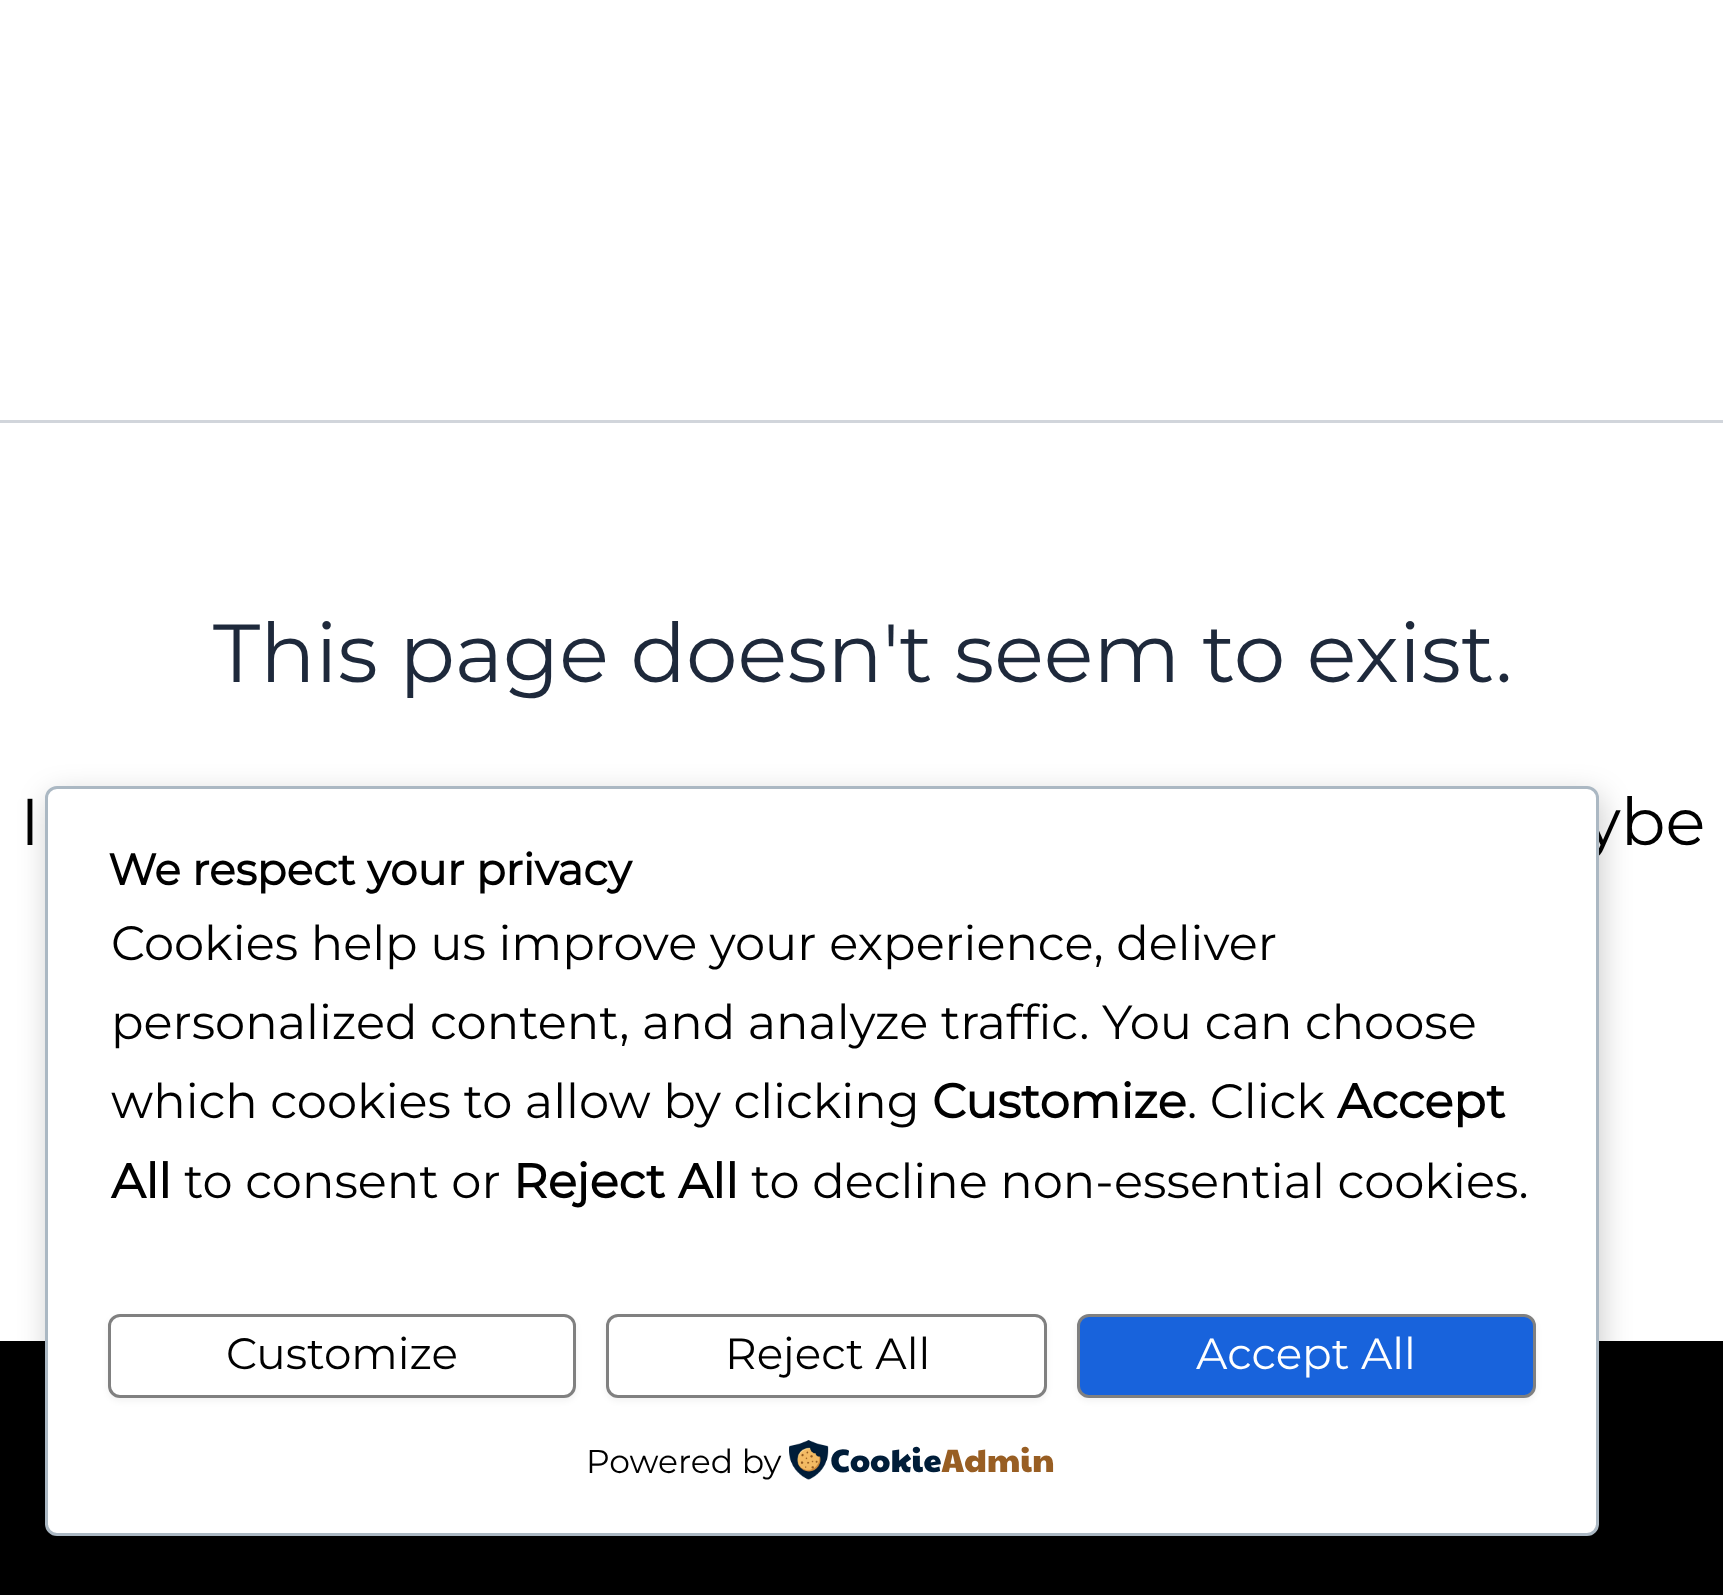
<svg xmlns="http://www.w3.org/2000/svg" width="1723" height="1595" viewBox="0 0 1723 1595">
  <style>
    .t1 { font: 82.1px Montserrat; fill: #1e293b; }
    .t2 { font: 66px Montserrat; fill: #000; }
    .t3 { font: bold 43.75px Montserrat; fill: #000; }
    .t4 { font: 48px Montserrat; fill: #000; }
    .t5 { font: bold 48px Montserrat; fill: #000; }
    .t6 { font: 43.75px Montserrat; fill: #000; }
    .t7 { font: 43.75px Montserrat; fill: #fff; }
    .t8 { font: 33px Montserrat; fill: #000; }
  </style>
  <rect width="100%" height="100%" fill="#fff"/>
  <rect x="0" y="420" width="1723" height="3" fill="#d1d5db"/>
  <text x="213" y="682" class="t1">This page doesn't seem to exist.</text>
  <text x="20" y="845" class="t2">I</text>
  <text x="1585" y="845" class="t2">ybe</text>
  <rect x="0" y="1341" width="1723" height="254" fill="#000"/>
  <rect x="48" y="795" width="1554" height="750" rx="12" fill="#00000033" filter="blur(15px)"/>
  <rect x="46.5" y="787.5" width="1551" height="747" rx="10.5" fill="#fff" stroke="#abb8c3" stroke-width="3"/>
  <text x="108" y="885" class="t3">We respect your privacy</text>
  <text x="111" y="960" class="t4">Cookies help us improve your experience, deliver</text>
  <text x="111" y="1039" class="t4">personalized content, and analyze traffic. You can choose</text>
  <text x="111" y="1118" class="t4">which cookies to allow by clicking</text>
  <text x="932" y="1118" class="t5">Customize</text>
  <text x="1187" y="1118" class="t4">. Click</text>
  <text x="1337" y="1118" class="t5">Accept</text>
  <text x="111" y="1198" class="t5">All</text>
  <text x="184" y="1198" class="t4">to consent or</text>
  <text x="513" y="1198" class="t5">Reject All</text>
  <text x="751" y="1198" class="t4">to decline non-essential cookies.</text>
  <rect x="108" y="1317" width="468" height="84" rx="12" fill="#0000000d" filter="blur(3px)"/>
  <rect x="109.5" y="1315.5" width="465" height="81" rx="10.5" fill="#fff" stroke="#808080" stroke-width="3"/>
  <text x="226" y="1369" class="t6">Customize</text>
  <rect x="606" y="1317" width="441" height="84" rx="12" fill="#0000000d" filter="blur(3px)"/>
  <rect x="607.5" y="1315.5" width="438" height="81" rx="10.5" fill="#fff" stroke="#808080" stroke-width="3"/>
  <text x="725" y="1369" class="t6">Reject All</text>
  <rect x="1077" y="1317" width="459" height="84" rx="12" fill="#0000000d" filter="blur(3px)"/>
  <rect x="1078.5" y="1315.5" width="456" height="81" rx="10.5" fill="#1863dc" stroke="#808080" stroke-width="3"/>
  <text x="1196" y="1369" class="t7">Accept All</text>
  <text x="586" y="1473" class="t8">Powered by</text>
  <image x="789" y="1440" width="265" height="40" href="images/1.png"/>
</svg>
